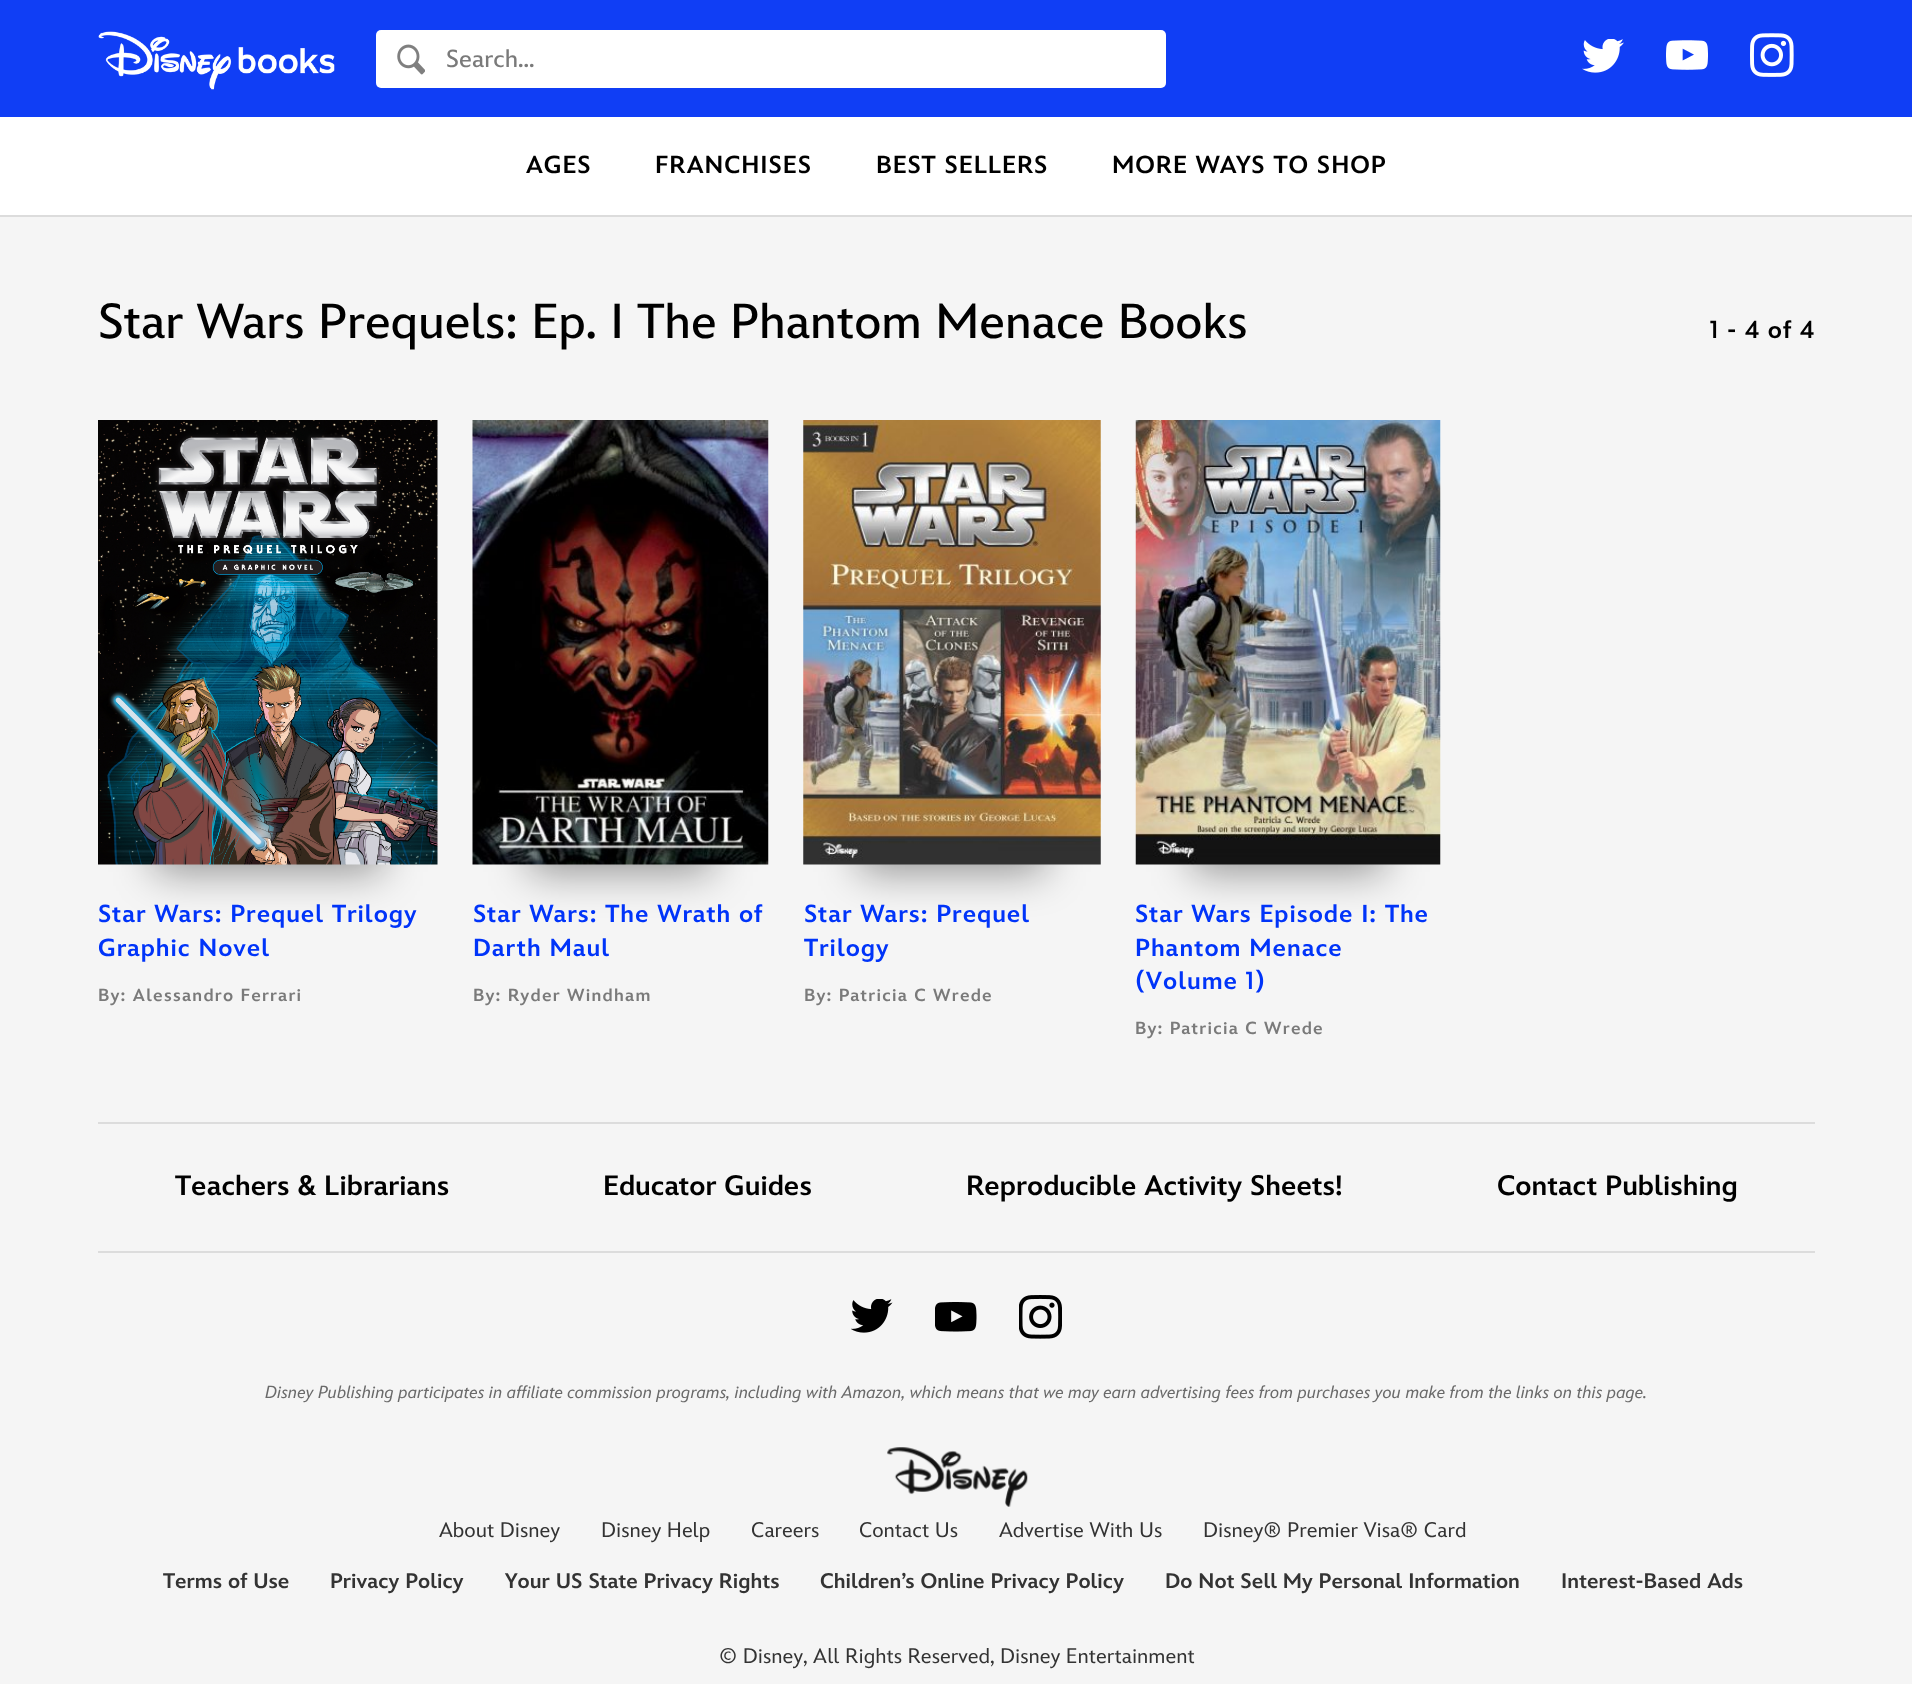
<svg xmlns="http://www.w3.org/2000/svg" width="1912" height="1684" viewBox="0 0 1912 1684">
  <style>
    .t1 { font: 500 24.5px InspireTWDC; fill: #7a7a7a; }
    .t2 { font: 900 24.5px InspireTWDC; letter-spacing: 0.95px; fill: #000; }
    .t3 { font: 500 49px InspireTWDC; fill: #000; }
    .t4 { font: 900 24.5px InspireTWDC; letter-spacing: 0.95px; fill: #0034f9; }
    .t5 { font: 900 17.5px InspireTWDC; letter-spacing: 1.25px; fill: #7a7a7a; }
    .t6 { font: 900 28px InspireTWDC; fill: #000; }
    .t7 { font: italic 17.5px InspireTWDC; fill: #6a6a6a; }
    .t8 { font: 21px InspireTWDC; fill: #333; }
    .t9 { font: 900 21px InspireTWDC; fill: #333; }
  </style>
  <rect width="100%" height="100%" fill="#f5f5f5"/>
  <rect x="0" y="0" width="1912" height="117" fill="#103ef5"/>
  <image x="98" y="31" width="237" height="59" href="images/1.png"/>
  <rect x="376" y="30" width="790" height="58" rx="5" fill="#fff"/>
  <image x="397" y="44" width="28" height="31" href="images/2.png"/>
  <text x="446" y="67" class="t1">Search...</text>
  <image x="1582" y="39" width="42" height="34" href="images/3.png"/>
  <image x="1666" y="40" width="42" height="30" href="images/4.png"/>
  <image x="1750" y="33" width="44" height="44" href="images/5.png"/>
  <rect x="0" y="117" width="1912" height="98" fill="#fff"/>
  <rect x="0" y="215" width="1912" height="2" fill="#dcdcdc"/>
  <text x="526" y="173" class="t2">AGES</text>
  <text x="655" y="173" class="t2">FRANCHISES</text>
  <text x="876" y="173" class="t2">BEST SELLERS</text>
  <text x="1112" y="173" class="t2">MORE WAYS TO SHOP</text>
  <text x="98" y="338" class="t3">Star Wars Prequels: Ep. I The Phantom Menace Books</text>
  <text x="1710" y="338" class="t2">1 - 4 of 4</text>
  <rect x="154" y="539" width="228" height="333" fill="#00000066" filter="blur(21px)"/>
  <image x="98" y="420" width="340" height="445" href="images/6.png"/>
  <text x="98" y="922" class="t4">Star Wars: Prequel Trilogy</text>
  <text x="98" y="956" class="t4">Graphic Novel</text>
  <text x="98" y="1001" class="t5">By: Alessandro Ferrari</text>
  <rect x="529" y="539" width="183" height="333" fill="#00000066" filter="blur(21px)"/>
  <image x="472" y="420" width="297" height="445" href="images/7.png"/>
  <text x="473" y="922" class="t4">Star Wars: The Wrath of</text>
  <text x="473" y="956" class="t4">Darth Maul</text>
  <text x="473" y="1001" class="t5">By: Ryder Windham</text>
  <rect x="859" y="539" width="186" height="333" fill="#00000066" filter="blur(21px)"/>
  <image x="803" y="420" width="298" height="445" href="images/8.png"/>
  <text x="804" y="922" class="t4">Star Wars: Prequel</text>
  <text x="804" y="956" class="t4">Trilogy</text>
  <text x="804" y="1001" class="t5">By: Patricia C Wrede</text>
  <rect x="1192" y="539" width="192" height="333" fill="#00000066" filter="blur(21px)"/>
  <image x="1135" y="420" width="306" height="445" href="images/9.png"/>
  <text x="1135" y="922" class="t4">Star Wars Episode I: The</text>
  <text x="1135" y="956" class="t4">Phantom Menace</text>
  <text x="1135" y="989" class="t4">(Volume 1)</text>
  <text x="1135" y="1034" class="t5">By: Patricia C Wrede</text>
  <rect x="98" y="1122" width="1717" height="2" fill="#dcdcdc"/>
  <rect x="98" y="1251" width="1717" height="2" fill="#dcdcdc"/>
  <text x="175" y="1195" class="t6">Teachers &amp; Librarians</text>
  <text x="603" y="1195" class="t6">Educator Guides</text>
  <text x="966" y="1195" class="t6">Reproducible Activity Sheets!</text>
  <text x="1497" y="1195" class="t6">Contact Publishing</text>
  <image x="851" y="1299" width="42" height="34" href="images/10.png"/>
  <image x="935" y="1302" width="42" height="30" href="images/11.png"/>
  <image x="1019" y="1295" width="43" height="44" href="images/12.png"/>
  <text x="265" y="1398" class="t7">Disney Publishing participates in affiliate commission programs, including with Amazon, which means that we may earn advertising fees from purchases you make from the links on this page.</text>
  <image x="887" y="1447" width="141" height="60" href="images/13.png"/>
  <text x="439" y="1537" class="t8">About Disney</text>
  <text x="601" y="1537" class="t8">Disney Help</text>
  <text x="751" y="1537" class="t8">Careers</text>
  <text x="859" y="1537" class="t8">Contact Us</text>
  <text x="999" y="1537" class="t8">Advertise With Us</text>
  <text x="1203" y="1537" class="t8">Disney® Premier Visa® Card</text>
  <text x="163" y="1588" class="t9">Terms of Use</text>
  <text x="330" y="1588" class="t9">Privacy Policy</text>
  <text x="505" y="1588" class="t9">Your US State Privacy Rights</text>
  <text x="820" y="1588" class="t9">Children’s Online Privacy Policy</text>
  <text x="1165" y="1588" class="t9">Do Not Sell My Personal Information</text>
  <text x="1561" y="1588" class="t9">Interest-Based Ads</text>
  <text x="719" y="1663" class="t8">© Disney, All Rights Reserved, Disney Entertainment</text>
</svg>
